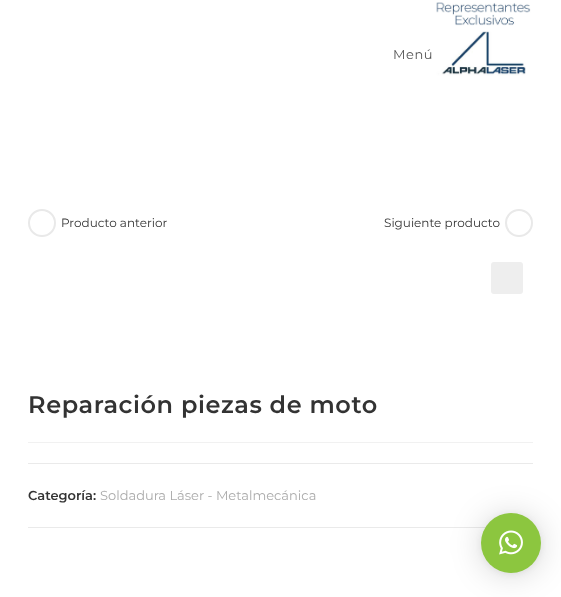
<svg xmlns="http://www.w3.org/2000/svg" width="561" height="597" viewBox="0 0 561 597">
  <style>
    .t1 { font: 13px Montserrat; letter-spacing: 0.6px; fill: #555; }
    .t2 { font: 12px Montserrat; fill: #333; }
    .t3 { font: 600 24px Montserrat; letter-spacing: 0.6px; fill: #333; }
    .t4 { font: 600 13px Montserrat; fill: #333; }
    .t5 { font: 13px Montserrat; fill: #ababab; }
  </style>
  <rect width="100%" height="100%" fill="#fff"/>
  <text x="393" y="59" class="t1">Menú</text>
  <image x="436" y="2" width="95" height="74" href="images/1.png"/>
  <circle cx="42" cy="223" r="13" fill="none" stroke="#e9e9e9" stroke-width="2"/>
  <text x="61" y="227" class="t2">Producto anterior</text>
  <text x="384" y="227" class="t2">Siguiente producto</text>
  <circle cx="519" cy="223" r="13" fill="none" stroke="#e9e9e9" stroke-width="2"/>
  <rect x="491" y="262" width="32" height="32" rx="3" fill="#eee"/>
  <rect x="28" y="442" width="505" height="1" fill="#f1f1f1"/>
  <text x="28" y="413" class="t3">Reparación piezas de moto</text>
  <rect x="28" y="463" width="505" height="1" fill="#eaeaea"/>
  <rect x="28" y="527" width="458" height="1" fill="#eaeaea"/>
  <text x="28" y="500" class="t4">Categoría:</text>
  <text x="100" y="500" class="t5">Soldadura Láser - Metalmecánica</text>
  <rect x="481" y="515" width="60" height="60" rx="30" fill="#00000029" filter="blur(16px)"/>
  <rect x="481" y="514" width="60" height="60" rx="30" fill="#0000000f" filter="blur(3px)"/>
  <circle cx="511" cy="543" r="30" fill="#8cc63f"/>
  <image x="499" y="530" width="24" height="25" href="images/2.png"/>
</svg>
